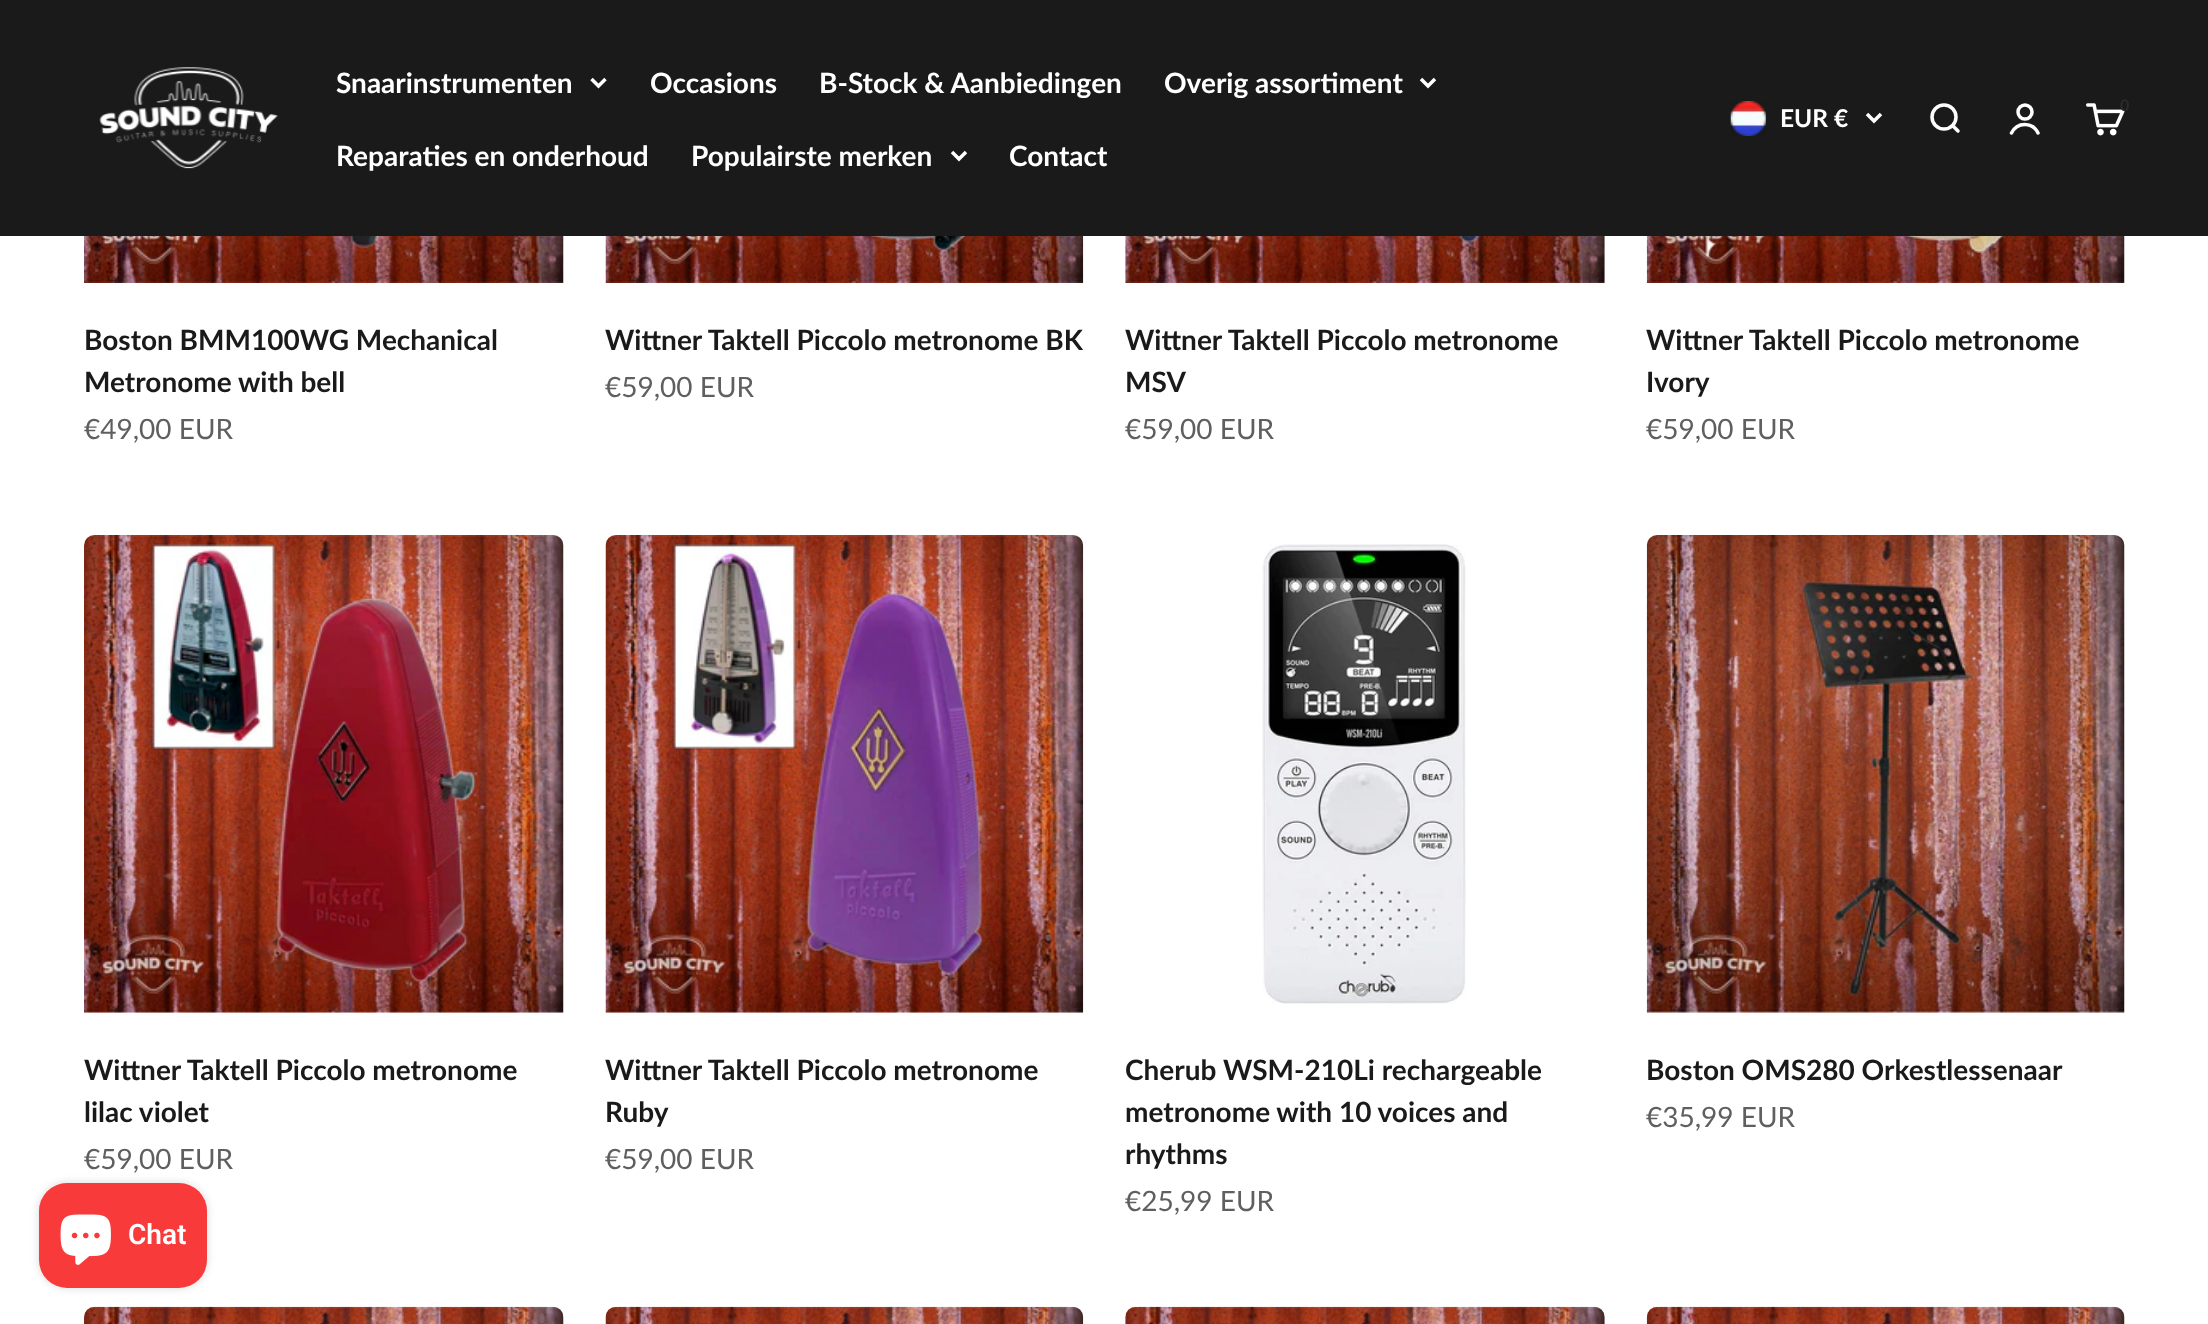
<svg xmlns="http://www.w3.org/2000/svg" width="2208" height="1324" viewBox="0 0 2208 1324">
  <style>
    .t1 { font: bold 28px Lato; fill: #fff; }
    .t2 { font: bold 24.5px Lato; fill: #fff; }
    .t3 { font: bold 16px Lato; fill: #2b2b2b; }
    .t4 { font: bold 28px Lato; fill: #1a1a1a; }
    .t5 { font: 28px Lato; fill: #5f5f5f; }
    .t6 { font: 600 28px Roboto; fill: #fff; }
  </style>
  <rect width="100%" height="100%" fill="#fff"/>
  <rect x="0" y="0" width="2208" height="236" fill="#1a1a1a"/>
  <image x="99" y="67" width="179" height="102" href="images/1.png"/>
  <text x="336" y="93" class="t1">Snaarinstrumenten</text>
  <path d="M591.5 79L598.5 86L605.5 79" fill="none" stroke="#fff" stroke-width="3.5"/>
  <text x="650" y="93" class="t1">Occasions</text>
  <text x="819" y="93" class="t1">B-Stock &amp; Aanbiedingen</text>
  <text x="1164" y="93" class="t1">Overig assortiment</text>
  <path d="M1421 79L1428 86L1435 79" fill="none" stroke="#fff" stroke-width="3.5"/>
  <text x="336" y="166" class="t1">Reparaties en onderhoud</text>
  <text x="691" y="166" class="t1">Populairste merken</text>
  <path d="M952 152L959 159L966 152" fill="none" stroke="#fff" stroke-width="3.5"/>
  <text x="1009" y="166" class="t1">Contact</text>
  <image x="1730" y="101" width="36" height="35" href="images/2.png"/>
  <text x="1780" y="127" class="t2">EUR €</text>
  <path d="M1867 114L1874 121L1881 114" fill="none" stroke="#fff" stroke-width="3.5"/>
  <circle cx="1944" cy="117" r="12" fill="none" stroke="#fff" stroke-width="3.5"/>
  <path d="M1953 126L1958 131" fill="none" stroke="#fff" stroke-width="3.5" stroke-linecap="round" stroke-linejoin="round"/>
  <circle cx="2025" cy="112" r="7" fill="none" stroke="#fff" stroke-width="3.5"/>
  <path d="M2011.5 133C2017 121.5 2032.5 121.5 2038 133" fill="none" stroke="#fff" stroke-width="3.5" stroke-linecap="round"/>
  <image x="2086" y="103" width="39" height="33" href="images/3.png"/>
  <text x="2120" y="111" class="t3">0</text>
  <image x="84" y="236" width="480" height="47" href="images/4.png"/>
  <text x="84" y="350" class="t4">Boston BMM100WG Mechanical</text>
  <text x="84" y="392" class="t4">Metronome with bell</text>
  <text x="84" y="439" class="t5">€49,00 EUR</text>
  <image x="605" y="236" width="479" height="47" href="images/5.png"/>
  <text x="605" y="350" class="t4">Wittner Taktell Piccolo metronome BK</text>
  <text x="605" y="397" class="t5">€59,00 EUR</text>
  <image x="1125" y="236" width="480" height="47" href="images/6.png"/>
  <text x="1125" y="350" class="t4">Wittner Taktell Piccolo metronome</text>
  <text x="1125" y="392" class="t4">MSV</text>
  <text x="1125" y="439" class="t5">€59,00 EUR</text>
  <image x="1646" y="236" width="479" height="47" href="images/7.png"/>
  <text x="1646" y="350" class="t4">Wittner Taktell Piccolo metronome</text>
  <text x="1646" y="392" class="t4">Ivory</text>
  <text x="1646" y="439" class="t5">€59,00 EUR</text>
  <image x="84" y="535" width="480" height="478" href="images/8.png"/>
  <text x="84" y="1080" class="t4">Wittner Taktell Piccolo metronome</text>
  <text x="84" y="1122" class="t4">lilac violet</text>
  <text x="84" y="1169" class="t5">€59,00 EUR</text>
  <image x="605" y="535" width="479" height="478" href="images/9.png"/>
  <text x="605" y="1080" class="t4">Wittner Taktell Piccolo metronome</text>
  <text x="605" y="1122" class="t4">Ruby</text>
  <text x="605" y="1169" class="t5">€59,00 EUR</text>
  <image x="1262" y="544" width="204" height="460" href="images/10.png"/>
  <text x="1125" y="1080" class="t4">Cherub WSM-210Li rechargeable</text>
  <text x="1125" y="1122" class="t4">metronome with 10 voices and</text>
  <text x="1125" y="1164" class="t4">rhythms</text>
  <text x="1125" y="1211" class="t5">€25,99 EUR</text>
  <image x="1646" y="535" width="479" height="478" href="images/11.png"/>
  <text x="1646" y="1080" class="t4">Boston OMS280 Orkestlessenaar</text>
  <text x="1646" y="1127" class="t5">€35,99 EUR</text>
  <image x="84" y="1306" width="480" height="18" href="images/12.png"/>
  <image x="605" y="1306" width="479" height="18" href="images/13.png"/>
  <image x="1125" y="1306" width="480" height="18" href="images/14.png"/>
  <image x="1646" y="1306" width="479" height="18" href="images/15.png"/>
  <rect x="39" y="1183" width="168" height="105" rx="28" fill="#00000026" filter="blur(4.5px)"/>
  <rect x="39" y="1183" width="168" height="105" rx="28" fill="#f83a3a"/>
  <image x="60" y="1214" width="51" height="51" href="images/16.png"/>
  <text x="128" y="1244" class="t6">Chat</text>
</svg>
